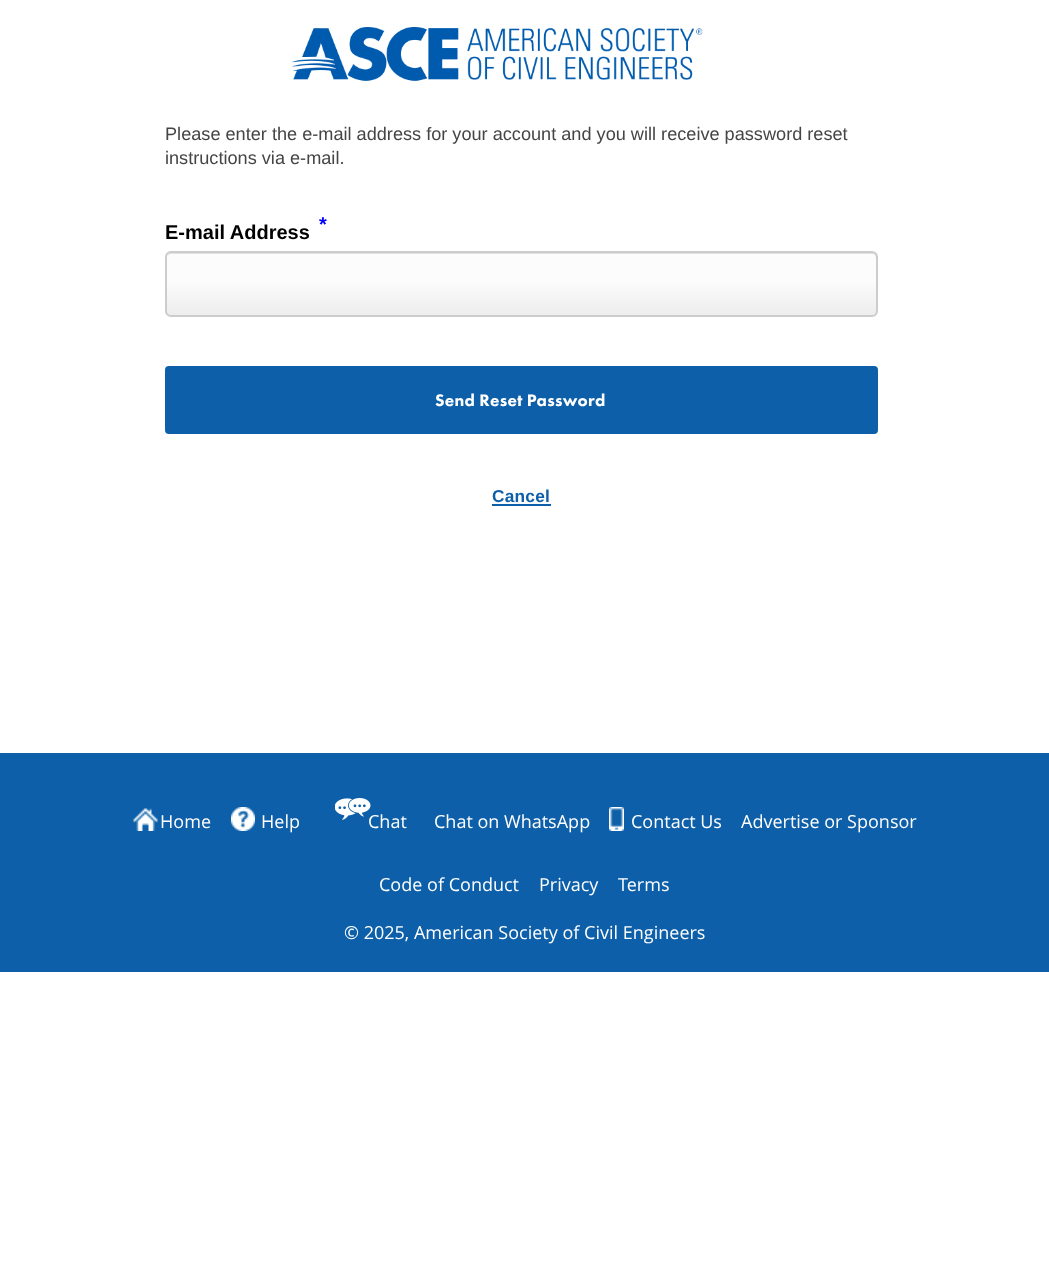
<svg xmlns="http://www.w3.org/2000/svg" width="1049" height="1266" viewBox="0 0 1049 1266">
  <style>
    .t1 { font: 18.15px Liberation Sans; fill: #454545; }
    .t2 { font: bold 20px Liberation Sans; fill: #00f; }
    .t3 { font: bold 20px Liberation Sans; fill: #000; }
    .t4 { font: 900 17.25px Futura PT; letter-spacing: 0.25px; fill: #fff; }
    .t5 { font: bold 17.25px Liberation Sans; letter-spacing: 0.25px; fill: #0c5fa8; }
    .t6 { font: 18px Open Sans; fill: #fff; }
  </style>
  <defs>
    <clipPath id="clip1"><rect x="165" y="251" width="713" height="66" rx="6"/></clipPath>
    <linearGradient id="g1" gradientUnits="userSpaceOnUse" x1="521" y1="252" x2="521" y2="315"><stop offset="0.45" stop-color="#fcfcfc"/><stop offset="0.96" stop-color="#eee"/></linearGradient>
  </defs>
  <rect width="100%" height="100%" fill="#fff"/>
  <image x="292" y="27" width="411" height="54" href="images/1.png"/>
  <text x="165" y="140" class="t1">Please enter the e-mail address for your account and you will receive password reset</text>
  <text x="165" y="164" class="t1">instructions via e-mail.</text>
  <text x="319" y="231" class="t2">*</text>
  <text x="165" y="239" class="t3">E-mail Address</text>
  <g clip-path="url(#clip1)">
    <rect x="165" y="252" width="713" height="63" fill="url(#g1)"/>
  </g>
  <path d="M171 254H872C874 254 876 256 876 258V257C876 254 874 252 871 252H172C170 252 168 254 167 256C168 255 170 254 171 254Z" fill="#e2e2e2"/>
  <rect x="166" y="252" width="711" height="64" rx="5" fill="none" stroke="#ccc" stroke-width="2"/>
  <rect x="165" y="366" width="713" height="68" rx="4" fill="#0c5fa8"/>
  <text x="435" y="406" class="t4">Send Reset Password</text>
  <text x="492" y="502" class="t5">Cancel</text>
  <rect x="492" y="504" width="59" height="2" fill="#0c5fa8"/>
  <rect x="0" y="753" width="1049" height="219" fill="#0c5fa8"/>
  <image x="335" y="798" width="36" height="22" href="images/2.png"/>
  <image x="133" y="808" width="25" height="23" href="images/3.png"/>
  <text x="160" y="828" class="t6">Home</text>
  <image x="231" y="807" width="24" height="24" href="images/4.png"/>
  <text x="261" y="828" class="t6">Help</text>
  <text x="368" y="828" class="t6">Chat</text>
  <text x="434" y="828" class="t6">Chat on WhatsApp</text>
  <image x="609" y="807" width="15" height="24" href="images/5.png"/>
  <text x="631" y="828" class="t6">Contact Us</text>
  <text x="741" y="828" class="t6">Advertise or Sponsor</text>
  <text x="379" y="891" class="t6">Code of Conduct</text>
  <text x="539" y="891" class="t6">Privacy</text>
  <text x="618" y="891" class="t6">Terms</text>
  <text x="344" y="939" class="t6">© 2025, American Society of Civil Engineers</text>
</svg>
